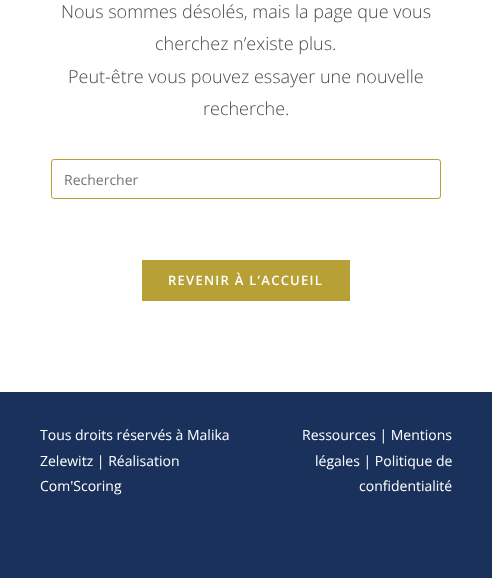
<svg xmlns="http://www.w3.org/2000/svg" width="492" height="578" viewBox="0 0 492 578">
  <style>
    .t1 { font: 300 18px Open Sans; fill: #4a4a4a; }
    .t2 { font: 14px Open Sans; fill: #757575; }
    .t3 { font: 600 13px Open Sans; letter-spacing: 1.25px; fill: #fff; }
    .t4 { font: 14px Open Sans; fill: #fff; }
  </style>
  <rect width="100%" height="100%" fill="#fff"/>
  <text x="61" y="18" class="t1">Nous sommes désolés, mais la page que vous</text>
  <text x="155" y="50" class="t1">cherchez n’existe plus.</text>
  <text x="68" y="83" class="t1">Peut-être vous pouvez essayer une nouvelle</text>
  <text x="203" y="115" class="t1">recherche.</text>
  <rect x="51.5" y="159.5" width="389" height="39" rx="2.5" fill="none" stroke="#b7a136"/>
  <text x="64" y="185" class="t2">Rechercher</text>
  <rect x="142" y="260" width="208" height="41" fill="#b7a136"/>
  <text x="168" y="285" class="t3">REVENIR À L’ACCUEIL</text>
  <rect x="0" y="392" width="492" height="186" fill="#19315b"/>
  <text x="40" y="440" class="t4">Tous droits réservés à Malika</text>
  <text x="40" y="466" class="t4">Zelewitz | Réalisation</text>
  <text x="40" y="491" class="t4">Com'Scoring</text>
  <text x="302" y="440" class="t4">Ressources | Mentions</text>
  <text x="315" y="466" class="t4">légales | Politique de</text>
  <text x="359" y="491" class="t4">confidentialité</text>
</svg>
